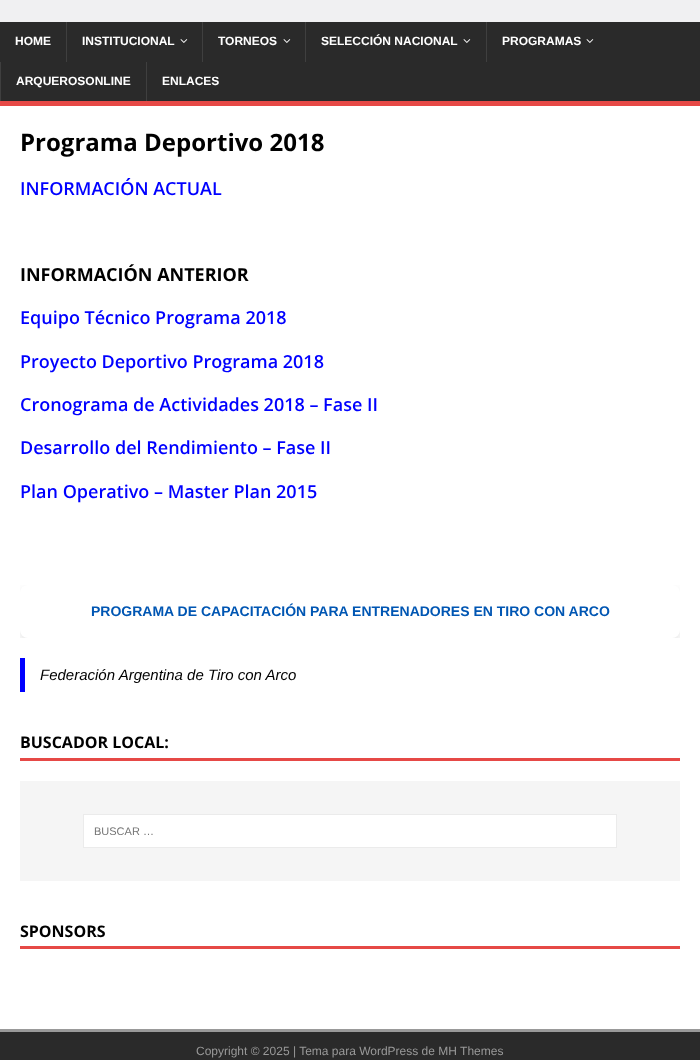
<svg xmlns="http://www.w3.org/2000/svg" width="700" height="1060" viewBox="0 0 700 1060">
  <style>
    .t1 { font: bold 12px Liberation Sans; fill: #fff; }
    .t2 { font: bold 24px Open Sans; fill: #000; }
    .t3 { font: 600 18px Open Sans; fill: #00f; }
    .t4 { font: bold 18px Open Sans; fill: #000; }
    .t5 { font: bold 14px Liberation Sans; fill: #0056b3; }
    .t6 { font: italic 15px Liberation Sans; fill: #000; }
    .t7 { font: bold 16px Open Sans; fill: #000; }
    .t8 { font: 11px Liberation Sans; fill: #757575; }
    .t9 { font: 12px Liberation Sans; fill: #999; }
  </style>
  <defs>
    <clipPath id="clip1"><rect x="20" y="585" width="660" height="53"/></clipPath>
  </defs>
  <rect width="100%" height="100%" fill="#f0f0f2"/>
  <rect x="0" y="22" width="700" height="79" fill="#2a2a2a"/>
  <rect x="0" y="101" width="700" height="5" fill="#e64946"/>
  <text x="15" y="45" class="t1">HOME</text>
  <rect x="66" y="22" width="1" height="40" fill="#3f3f3f"/>
  <text x="82" y="45" class="t1">INSTITUCIONAL</text>
  <image x="180" y="39" width="8" height="4" href="images/1.png"/>
  <rect x="202" y="22" width="1" height="40" fill="#3f3f3f"/>
  <text x="218" y="45" class="t1">TORNEOS</text>
  <image x="283" y="39" width="8" height="4" href="images/1.png"/>
  <rect x="305" y="22" width="1" height="40" fill="#3f3f3f"/>
  <text x="321" y="45" class="t1">SELECCIÓN NACIONAL</text>
  <image x="463" y="39" width="8" height="4" href="images/1.png"/>
  <rect x="486" y="22" width="1" height="40" fill="#3f3f3f"/>
  <text x="502" y="45" class="t1">PROGRAMAS</text>
  <image x="586" y="39" width="8" height="4" href="images/1.png"/>
  <rect x="0" y="62" width="1" height="39" fill="#3f3f3f"/>
  <text x="16" y="85" class="t1">ARQUEROSONLINE</text>
  <rect x="146" y="62" width="1" height="39" fill="#3f3f3f"/>
  <text x="162" y="85" class="t1">ENLACES</text>
  <rect x="0" y="106" width="700" height="923" fill="#fff"/>
  <text x="20" y="151" class="t2">Programa Deportivo 2018</text>
  <text x="20" y="195" class="t3">INFORMACIÓN ACTUAL</text>
  <text x="20" y="281" class="t4">INFORMACIÓN ANTERIOR</text>
  <text x="20" y="324" class="t3">Equipo Técnico Programa 2018</text>
  <text x="20" y="368" class="t3">Proyecto Deportivo Programa 2018</text>
  <text x="20" y="411" class="t3">Cronograma de Actividades 2018 – Fase II</text>
  <text x="20" y="454" class="t3">Desarrollo del Rendimiento – Fase II</text>
  <text x="20" y="498" class="t3">Plan Operativo – Master Plan 2015</text>
  <g clip-path="url(#clip1)">
    <rect x="20" y="589" width="660" height="53" rx="8" fill="#0000001a" filter="blur(4px)"/>
  </g>
  <rect x="20" y="585" width="660" height="53" rx="8" fill="#fff"/>
  <text x="91" y="616" class="t5">PROGRAMA DE CAPACITACIÓN PARA ENTRENADORES EN TIRO CON ARCO</text>
  <rect x="20" y="658" width="5" height="34" fill="#00f"/>
  <text x="40" y="680" class="t6">Federación Argentina de Tiro con Arco</text>
  <rect x="20" y="758" width="660" height="3" fill="#e64946"/>
  <text x="20" y="748" class="t7">BUSCADOR LOCAL:</text>
  <rect x="20" y="781" width="660" height="100" fill="#f5f5f5"/>
  <rect x="83.5" y="814.5" width="533" height="33" fill="#fff" stroke="#ebebeb"/>
  <text x="94" y="835" class="t8">BUSCAR …</text>
  <rect x="20" y="946" width="660" height="3" fill="#e64946"/>
  <text x="20" y="937" class="t7">SPONSORS</text>
  <rect x="0" y="1032" width="700" height="28" fill="#2a2a2a"/>
  <rect x="0" y="1029" width="700" height="3" fill="#999"/>
  <text x="196" y="1055" class="t9">Copyright © 2025 | Tema para WordPress de MH Themes</text>
</svg>
